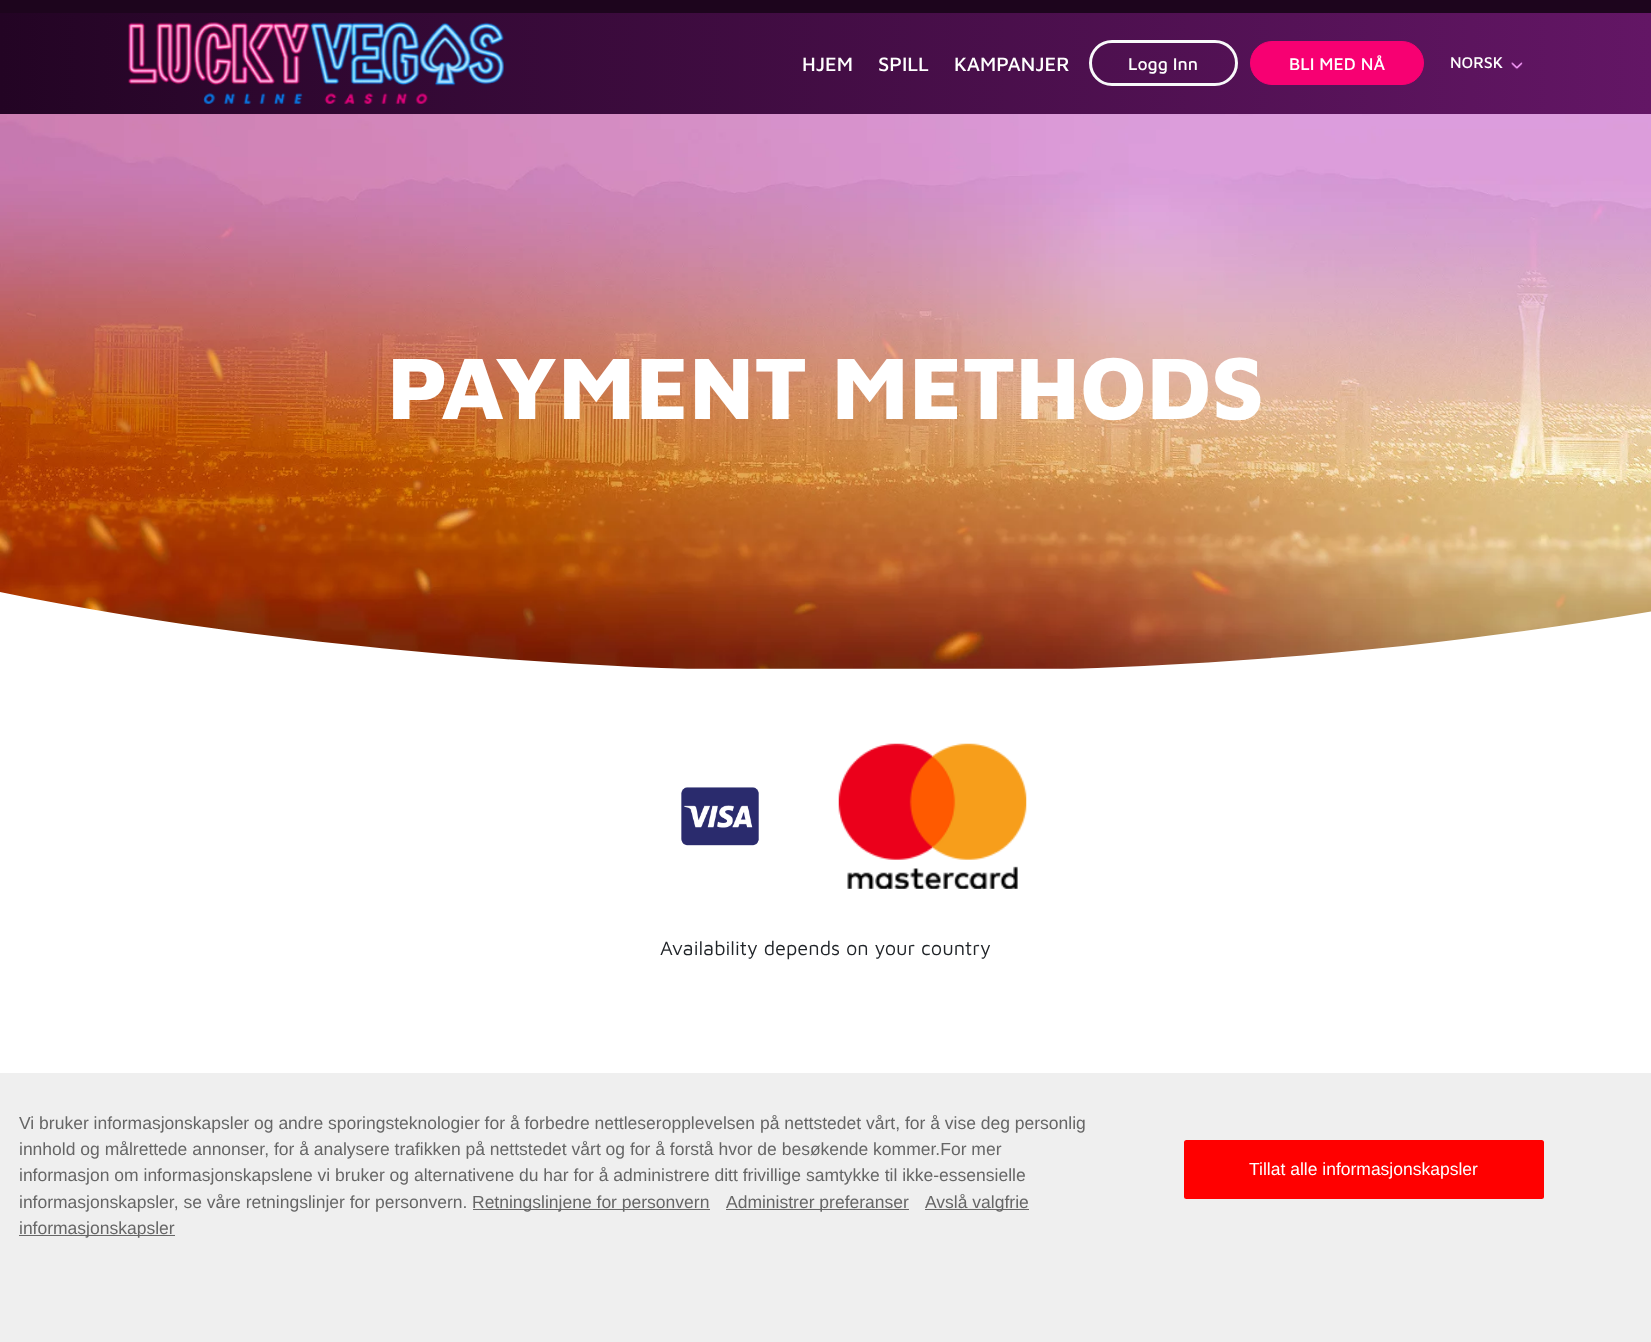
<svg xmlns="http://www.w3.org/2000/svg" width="1651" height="1342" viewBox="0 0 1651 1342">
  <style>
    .t1 { font: 500 20px Maven Pro; fill: #fff; }
    .t2 { font: 500 17.5px Maven Pro; fill: #fff; }
    .t3 { font: 500 16px Maven Pro; fill: #fff; }
    .t4 { font: 800 90px Maven Pro; fill: #fff; }
    .t5 { font: 20px Maven Pro; fill: #212529; }
    .t6 { font: 17.5px Liberation Sans; fill: #666; }
    .t7 { font: 17.5px Liberation Sans; fill: #fff; }
  </style>
  <defs>
    <linearGradient id="g1" gradientUnits="userSpaceOnUse" x1="0" y1="57" x2="1651" y2="57"><stop offset="0" stop-color="#230424"/><stop offset="1" stop-color="#631665"/></linearGradient>
  </defs>
  <rect width="100%" height="100%" fill="#fff"/>
  <rect x="0" y="13" width="1651" height="101" fill="url(#g1)"/>
  <rect x="0" y="0" width="1651" height="13" fill="#1d051d"/>
  <image x="128" y="22" width="376" height="82" href="images/1.png"/>
  <text x="802" y="71" class="t1">HJEM</text>
  <text x="878" y="71" class="t1">SPILL</text>
  <text x="954" y="71" class="t1">KAMPANJER</text>
  <rect x="1090.5" y="41.5" width="146" height="43" rx="21.5" fill="none" stroke="#f8f9fa" stroke-width="3"/>
  <text x="1128" y="70" class="t2">Logg Inn</text>
  <rect x="1250.5" y="41.5" width="173" height="43" rx="21.5" fill="#f70072" stroke="#f70072"/>
  <text x="1289" y="70" class="t2">BLI MED NÅ</text>
  <text x="1450" y="68" class="t3">NORSK</text>
  <image x="1511" y="62" width="12" height="8" href="images/2.png"/>
  <image x="0" y="114" width="1651" height="555" href="images/3.png"/>
  <text x="387" y="419" class="t4">PAYMENT METHODS</text>
  <path d="M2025 681H-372V485C-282 521-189 548-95 571C18 598 133 618 248 633C442 658 636 671 831 672C1022 674 1213 666 1403 646C1511 634 1618 619 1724 598C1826 579 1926 555 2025 523Z" fill="#fff"/>
  <image x="681" y="787" width="78" height="59" href="images/4.png"/>
  <image x="838" y="743" width="189" height="146" href="images/5.png"/>
  <text x="660" y="955" class="t5">Availability depends on your country</text>
  <rect x="0" y="1073" width="1651" height="269" fill="#efefef"/>
  <text x="19" y="1129" class="t6">Vi bruker informasjonskapsler og andre sporingsteknologier for å forbedre nettleseropplevelsen på nettstedet vårt, for å vise deg personlig</text>
  <text x="19" y="1155" class="t6">innhold og målrettede annonser, for å analysere trafikken på nettstedet vårt og for å forstå hvor de besøkende kommer.For mer</text>
  <text x="19" y="1181" class="t6">informasjon om informasjonskapslene vi bruker og alternativene du har for å administrere ditt frivillige samtykke til ikke-essensielle</text>
  <text x="19" y="1208" class="t6">informasjonskapsler, se våre retningslinjer for personvern.</text>
  <rect x="473" y="1209" width="237" height="1" fill="#666"/>
  <text x="472" y="1208" class="t6">Retningslinjene for personvern</text>
  <rect x="726" y="1209" width="183" height="1" fill="#666"/>
  <text x="726" y="1208" class="t6">Administrer preferanser</text>
  <rect x="925" y="1209" width="104" height="1" fill="#666"/>
  <text x="925" y="1208" class="t6">Avslå valgfrie</text>
  <rect x="19" y="1235" width="156" height="1" fill="#666"/>
  <text x="19" y="1234" class="t6">informasjonskapsler</text>
  <rect x="1184" y="1140" width="360" height="59" rx="2.5" fill="#f00"/>
  <text x="1249" y="1175" class="t7">Tillat alle informasjonskapsler</text>
</svg>
